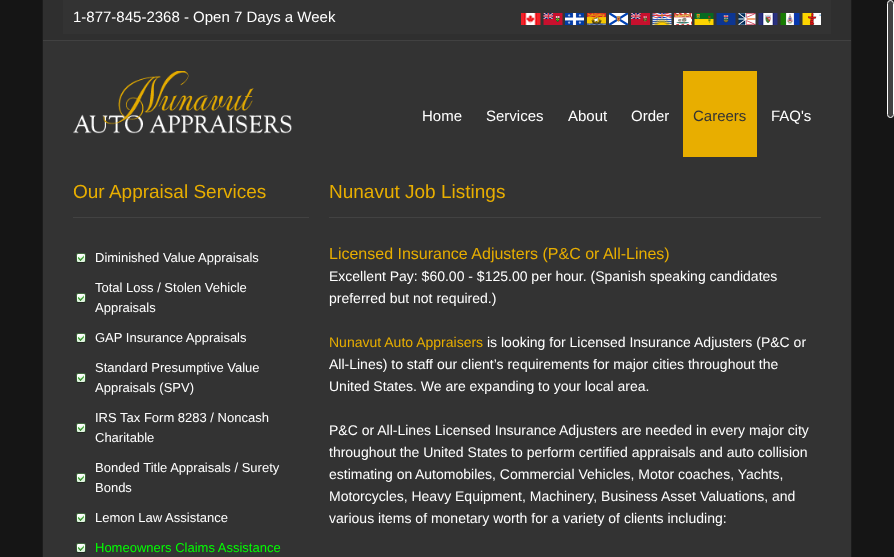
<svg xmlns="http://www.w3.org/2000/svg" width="894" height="557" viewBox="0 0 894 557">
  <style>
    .t1 { font: 15px Liberation Sans; fill: #fff; }
    .t2 { font: 15px Liberation Sans; fill: #333; }
    .t3 { font: 19px Liberation Sans; fill: #e8ae00; }
    .t4 { font: 13px Liberation Sans; fill: #fff; }
    .t5 { font: 13px Liberation Sans; fill: #0f0; }
    .t6 { font: 16px Liberation Sans; fill: #e8ae00; }
    .t7 { font: 14px Liberation Sans; fill: #fff; }
    .t8 { font: 14px Liberation Sans; fill: #e8ae00; }
  </style>
  <rect width="100%" height="100%" fill="#151515"/>
  <rect x="43" y="41" width="808" height="516" fill="#333"/>
  <rect x="851" y="0" width="1" height="557" fill="#1c1c1c"/>
  <rect x="42" y="0" width="1" height="557" fill="#1c1c1c"/>
  <rect x="43" y="0" width="808" height="40" fill="#2f2f2f"/>
  <rect x="43" y="40" width="808" height="1" fill="#414141"/>
  <rect x="63" y="0" width="768" height="34" fill="#333"/>
  <text x="73" y="22" class="t1">1-877-845-2368 - Open 7 Days a Week</text>
  <image x="521" y="13" width="300" height="12" href="images/1.png"/>
  <image x="73" y="71" width="219" height="63" href="images/2.png"/>
  <text x="422" y="121" class="t1">Home</text>
  <text x="486" y="121" class="t1">Services</text>
  <text x="568" y="121" class="t1">About</text>
  <text x="631" y="121" class="t1">Order</text>
  <rect x="683" y="71" width="74" height="86" fill="#e8ae00"/>
  <text x="693" y="121" class="t2">Careers</text>
  <text x="771" y="121" class="t1">FAQ's</text>
  <rect x="73" y="217" width="236" height="1" fill="#424242"/>
  <text x="73" y="198" class="t3">Our Appraisal Services</text>
  <image x="76" y="253" width="10" height="10" href="images/3.png"/>
  <text x="95" y="262" class="t4">Diminished Value Appraisals</text>
  <image x="76" y="293" width="10" height="10" href="images/3.png"/>
  <text x="95" y="292" class="t4">Total Loss / Stolen Vehicle</text>
  <text x="95" y="312" class="t4">Appraisals</text>
  <image x="76" y="333" width="10" height="10" href="images/3.png"/>
  <text x="95" y="342" class="t4">GAP Insurance Appraisals</text>
  <image x="76" y="373" width="10" height="10" href="images/3.png"/>
  <text x="95" y="372" class="t4">Standard Presumptive Value</text>
  <text x="95" y="392" class="t4">Appraisals (SPV)</text>
  <image x="76" y="423" width="10" height="10" href="images/3.png"/>
  <text x="95" y="422" class="t4">IRS Tax Form 8283 / Noncash</text>
  <text x="95" y="442" class="t4">Charitable</text>
  <image x="76" y="473" width="10" height="10" href="images/3.png"/>
  <text x="95" y="472" class="t4">Bonded Title Appraisals / Surety</text>
  <text x="95" y="492" class="t4">Bonds</text>
  <image x="76" y="513" width="10" height="10" href="images/3.png"/>
  <text x="95" y="522" class="t4">Lemon Law Assistance</text>
  <image x="76" y="543" width="10" height="10" href="images/3.png"/>
  <text x="95" y="552" class="t5">Homeowners Claims Assistance</text>
  <rect x="329" y="217" width="492" height="1" fill="#424242"/>
  <text x="329" y="198" class="t3">Nunavut Job Listings</text>
  <text x="329" y="259" class="t6">Licensed Insurance Adjusters (P&amp;C or All-Lines)</text>
  <text x="329" y="281" class="t7">Excellent Pay: $60.00 - $125.00 per hour. (Spanish speaking candidates</text>
  <text x="329" y="303" class="t7">preferred but not required.)</text>
  <text x="329" y="347" class="t8">Nunavut Auto Appraisers</text>
  <text x="487" y="347" class="t7">is looking for Licensed Insurance Adjusters (P&amp;C or</text>
  <text x="329" y="369" class="t7">All-Lines) to staff our client’s requirements for major cities throughout the</text>
  <text x="329" y="391" class="t7">United States. We are expanding to your local area.</text>
  <text x="329" y="435" class="t7">P&amp;C or All-Lines Licensed Insurance</text>
  <text x="559" y="435" class="t7">Adjusters are needed in every major city</text>
  <text x="329" y="457" class="t7">throughout the United States to perform certified appraisals and auto collision</text>
  <text x="329" y="479" class="t7">estimating on</text>
  <text x="415" y="479" class="t7">Automobiles, Commercial Vehicles, Motor coaches, Yachts,</text>
  <text x="329" y="501" class="t7">Motorcycles, Heavy Equipment, Machinery, Business Asset Valuations, and</text>
  <text x="329" y="523" class="t7">various items of monetary worth for a variety of clients including:</text>
  <rect x="887.5" y="0.5" width="6" height="117" rx="3" fill="#424242" stroke="#fff"/>
</svg>
